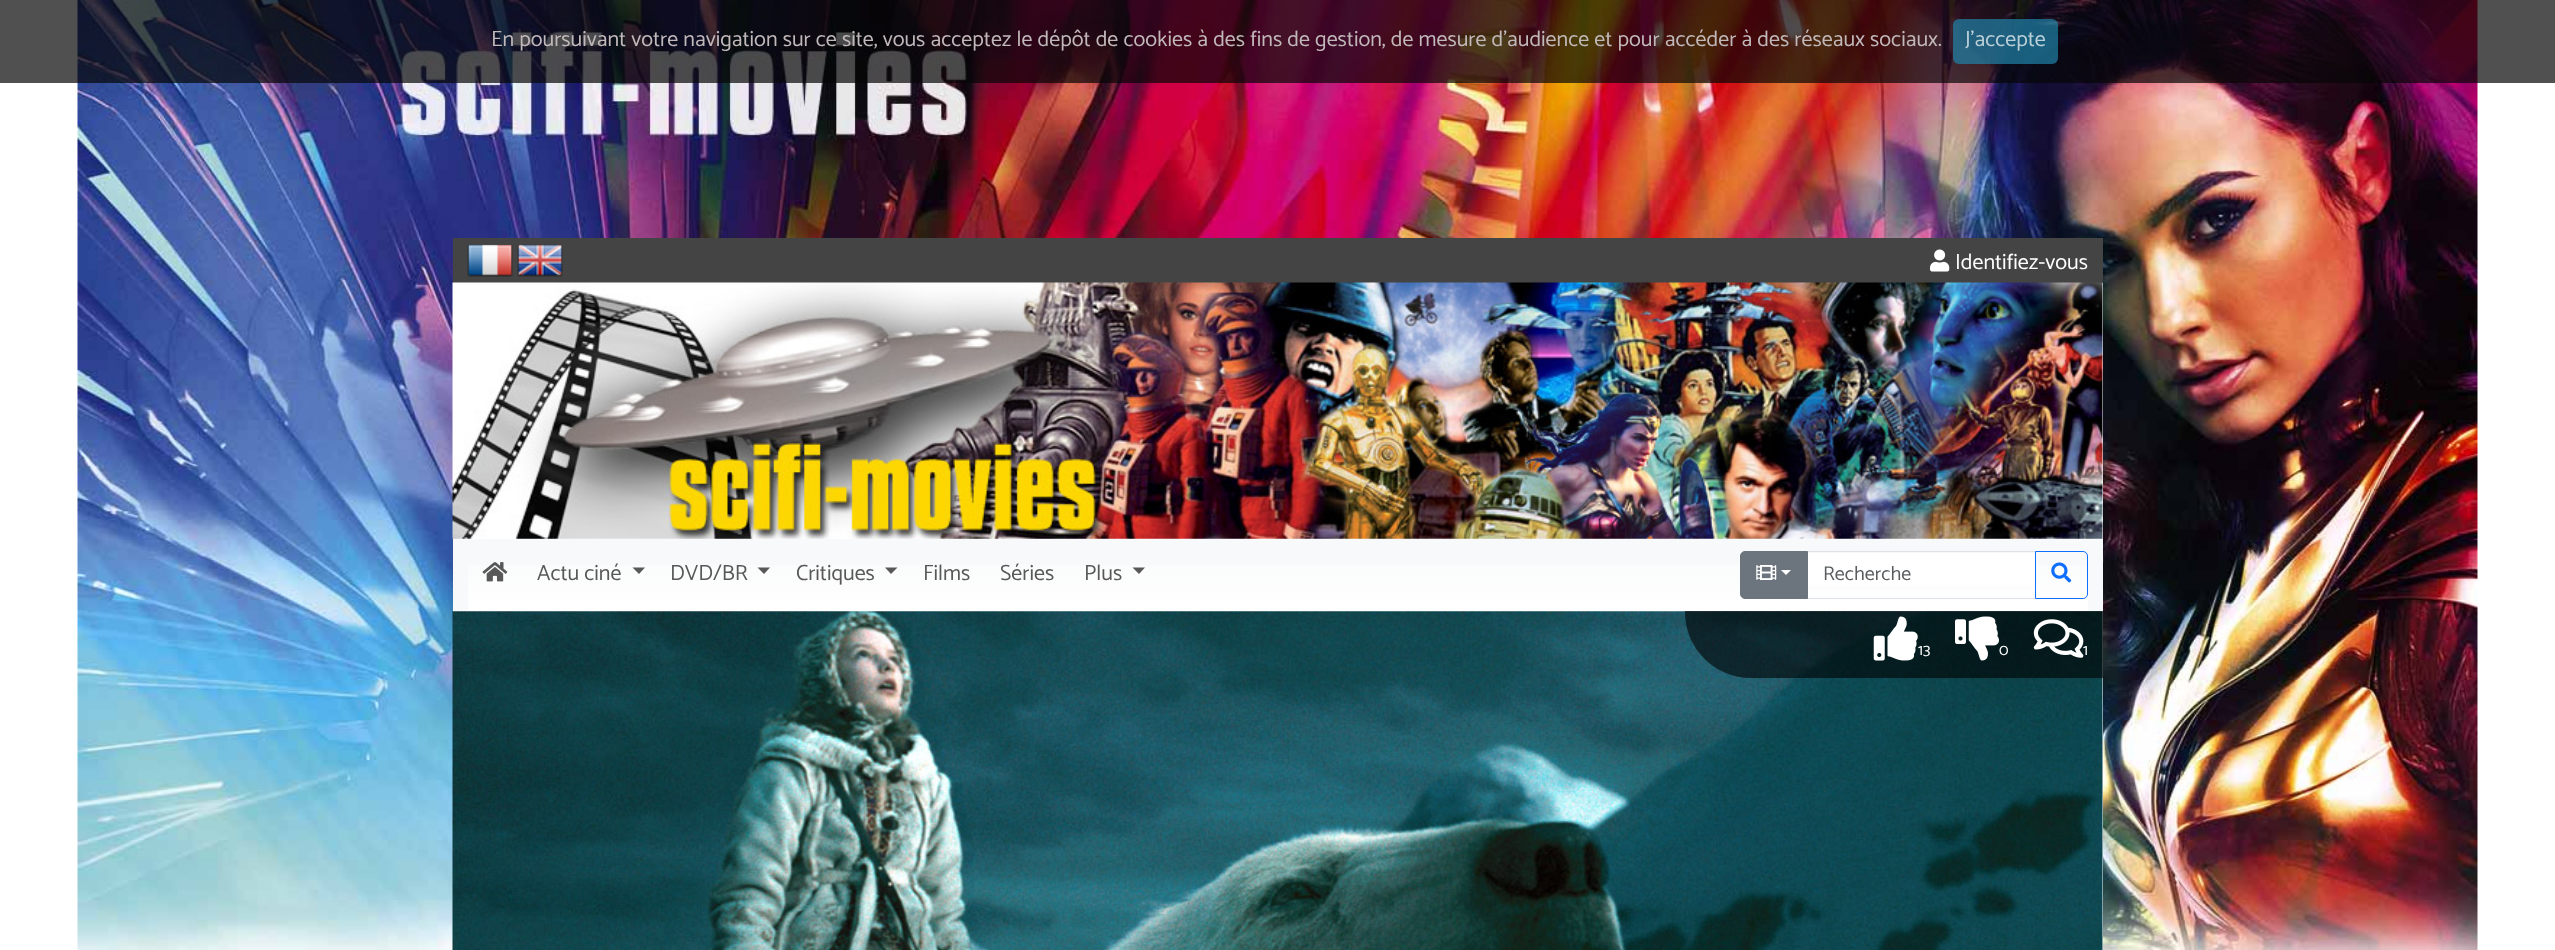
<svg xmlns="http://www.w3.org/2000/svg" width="2555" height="950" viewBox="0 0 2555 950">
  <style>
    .t1 { font: 100 22px Catamaran; fill: #c1b8ba; }
    .t2 { font: 100 22px Catamaran; fill: #bbcfd8; }
    .t3 { font: 100 22px Catamaran; fill: #fff; }
    .t4 { font: 100 22px Catamaran; fill: #585858; }
    .t5 { font: 100 20px Catamaran; fill: #595c5f; }
    .t6 { font: 100 16px Catamaran; fill: #fff; }
  </style>
  <defs>
    <linearGradient id="g1" gradientUnits="userSpaceOnUse" x1="1278" y1="539" x2="1278" y2="611"><stop offset="0" stop-color="#f8f9fa"/><stop offset="1" stop-color="#fff"/></linearGradient>
  </defs>
  <rect width="100%" height="100%" fill="#fff"/>
  <image x="77" y="0" width="2401" height="950" href="images/1.png"/>
  <rect x="0" y="0" width="2555" height="83" fill="#050505b3"/>
  <text x="491" y="46" class="t1">En poursuivant votre navigation sur ce site, vous acceptez le dépôt de cookies à des fins de gestion, de mesure d’audience et pour accéder à des réseaux sociaux.</text>
  <rect x="1953" y="19" width="105" height="45" rx="6" fill="#1f83a8b3"/>
  <text x="1965" y="46" class="t2">J'accepte</text>
  <rect x="453" y="238" width="1650" height="45" fill="#444"/>
  <image x="467" y="244" width="46" height="33" href="images/2.png"/>
  <image x="517" y="244" width="46" height="33" href="images/3.png"/>
  <image x="1930" y="249" width="20" height="23" href="images/4.png"/>
  <text x="1955" y="269" class="t3">Identifiez-vous</text>
  <rect x="453" y="283" width="1650" height="256" fill="#fff"/>
  <image x="452" y="282" width="1651" height="257" href="images/5.png"/>
  <rect x="453" y="539" width="1650" height="72" fill="#f8f9fa"/>
  <rect x="468" y="565" width="1620" height="46" fill="url(#g1)"/>
  <image x="482" y="562" width="26" height="20" href="images/6.png"/>
  <text x="537" y="580" class="t4">Actu ciné</text>
  <path d="M632.5 567.5H645L639 574Z" fill="#585858"/>
  <text x="670" y="580" class="t4">DVD/BR</text>
  <path d="M757.5 567.5H770L764 574Z" fill="#585858"/>
  <text x="796" y="580" class="t4">Critiques</text>
  <path d="M885 567.5H897.5L891 574Z" fill="#585858"/>
  <text x="923" y="580" class="t4">Films</text>
  <text x="1000" y="580" class="t4">Séries</text>
  <text x="1084" y="580" class="t4">Plus</text>
  <path d="M1132.5 567.5H1145L1139 574Z" fill="#585858"/>
  <rect x="1808" y="553" width="227" height="32" fill="#fff"/>
  <rect x="1806.5" y="551.5" width="229" height="47" fill="none" stroke="#dee2e6"/>
  <path d="M1745 551.5H1807.5V598.5H1745C1742.5 598.5 1740.5 596.5 1740.5 594V556C1740.5 553.5 1742.5 551.5 1745 551.5Z" fill="#6c757d" stroke="#6c757d"/>
  <image x="1756" y="565" width="21" height="15" href="images/7.png"/>
  <path d="M1781 570H1791L1786 575Z" fill="#fff"/>
  <text x="1823" y="580" class="t5">Recherche</text>
  <path d="M2035.5 551.5H2083C2085.5 551.5 2087.5 553.5 2087.5 556V594C2087.5 596.5 2085.5 598.5 2083 598.5H2035.5Z" fill="none" stroke="#0d6efd"/>
  <image x="2051" y="562" width="21" height="21" href="images/8.png"/>
  <rect x="453" y="611" width="1650" height="339" fill="#fff"/>
  <image x="452" y="611" width="1651" height="339" href="images/9.png"/>
  <path d="M1685 611H2103V678H1751C1714.5 678 1685 648.5 1685 612Z" fill="#00000099"/>
  <image x="1873" y="616" width="45" height="45" href="images/10.png"/>
  <text x="1918" y="655" class="t6">13</text>
  <image x="1955" y="616" width="44" height="45" href="images/11.png"/>
  <text x="1999" y="655" class="t6">0</text>
  <image x="2033" y="619" width="51" height="39" href="images/12.png"/>
  <text x="2083" y="655" class="t6">1</text>
</svg>
